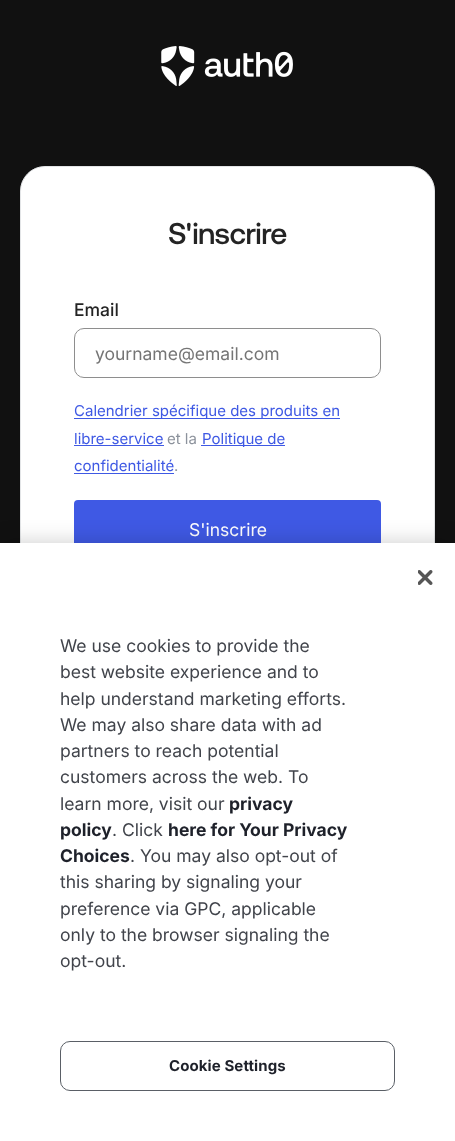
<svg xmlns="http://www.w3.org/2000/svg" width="455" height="1141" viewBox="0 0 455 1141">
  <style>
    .t1 { font: 500 30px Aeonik; letter-spacing: -0.6px; fill: #242424; }
    .t2 { font: 500 17.5px Inter; fill: #242424; }
    .t3 { font: 17.5px Inter; fill: #757575; }
    .t4 { font: 15px Inter; fill: #3f59e4; }
    .t5 { font: 15px Inter; fill: #8c929c; }
    .t6 { font: 17.5px Inter; fill: #fff; }
    .t7 { font: 17.5px Inter; fill: #41444b; }
    .t8 { font: bold 17.5px Inter; fill: #1e212a; }
    .t9 { font: bold 15px Inter; letter-spacing: 0.1px; fill: #1e212a; }
  </style>
  <rect width="100%" height="100%" fill="#111"/>
  <image x="161" y="46" width="132" height="40" href="images/1.png"/>
  <rect x="20.5" y="166.5" width="414" height="567" rx="24.5" fill="#fff" stroke="#e3e5e7"/>
  <text x="168" y="244" class="t1">S'inscrire</text>
  <text x="74" y="316" class="t2">Email</text>
  <rect x="74.5" y="328.5" width="306" height="49" rx="9.5" fill="none" stroke="#8e8e8e"/>
  <text x="95" y="360" class="t3">yourname@email.com</text>
  <rect x="74" y="418" width="266" height="1" fill="#3f59e4"/>
  <text x="74" y="416" class="t4">Calendrier spécifique des produits en</text>
  <text x="74" y="444" class="t4">libre-service</text>
  <rect x="74" y="445" width="90" height="1" fill="#3f59e4"/>
  <text x="167" y="444" class="t5">et la</text>
  <rect x="201" y="445" width="84" height="1" fill="#3f59e4"/>
  <text x="202" y="444" class="t4">Politique de</text>
  <text x="74" y="471" class="t4">confidentialité</text>
  <rect x="74" y="473" width="100" height="1" fill="#3f59e4"/>
  <text x="174" y="471" class="t5">.</text>
  <rect x="74" y="500" width="307" height="60" rx="4" fill="#3f59e4"/>
  <text x="189" y="536" class="t6">S'inscrire</text>
  <rect x="0" y="543" width="455" height="598" fill="#00000033" filter="blur(11px)"/>
  <rect x="0" y="543" width="455" height="598" fill="#fff"/>
  <image x="418" y="570" width="15" height="15" href="images/2.png"/>
  <text x="60" y="652" class="t7">We use cookies to provide the</text>
  <text x="60" y="678" class="t7">best website experience and to</text>
  <text x="60" y="705" class="t7">help understand marketing efforts.</text>
  <text x="60" y="731" class="t7">We may also share data with ad</text>
  <text x="60" y="757" class="t7">partners to reach potential</text>
  <text x="60" y="783" class="t7">customers across the web. To</text>
  <text x="60" y="810" class="t7">learn more, visit our</text>
  <text x="229" y="810" class="t8">privacy</text>
  <text x="60" y="836" class="t8">policy</text>
  <text x="112" y="836" class="t7">. Click</text>
  <text x="168" y="836" class="t8">here for Your Privacy</text>
  <text x="60" y="862" class="t8">Choices</text>
  <text x="130" y="862" class="t7">. You may also opt-out of</text>
  <text x="60" y="888" class="t7">this sharing by signaling your</text>
  <text x="60" y="915" class="t7">preference via GPC, applicable</text>
  <text x="60" y="941" class="t7">only to the browser signaling the</text>
  <text x="60" y="967" class="t7">opt-out.</text>
  <rect x="60.5" y="1041.5" width="334" height="49" rx="9.5" fill="none" stroke="#5a5f66"/>
  <text x="169" y="1071" class="t9">Cookie Settings</text>
</svg>
